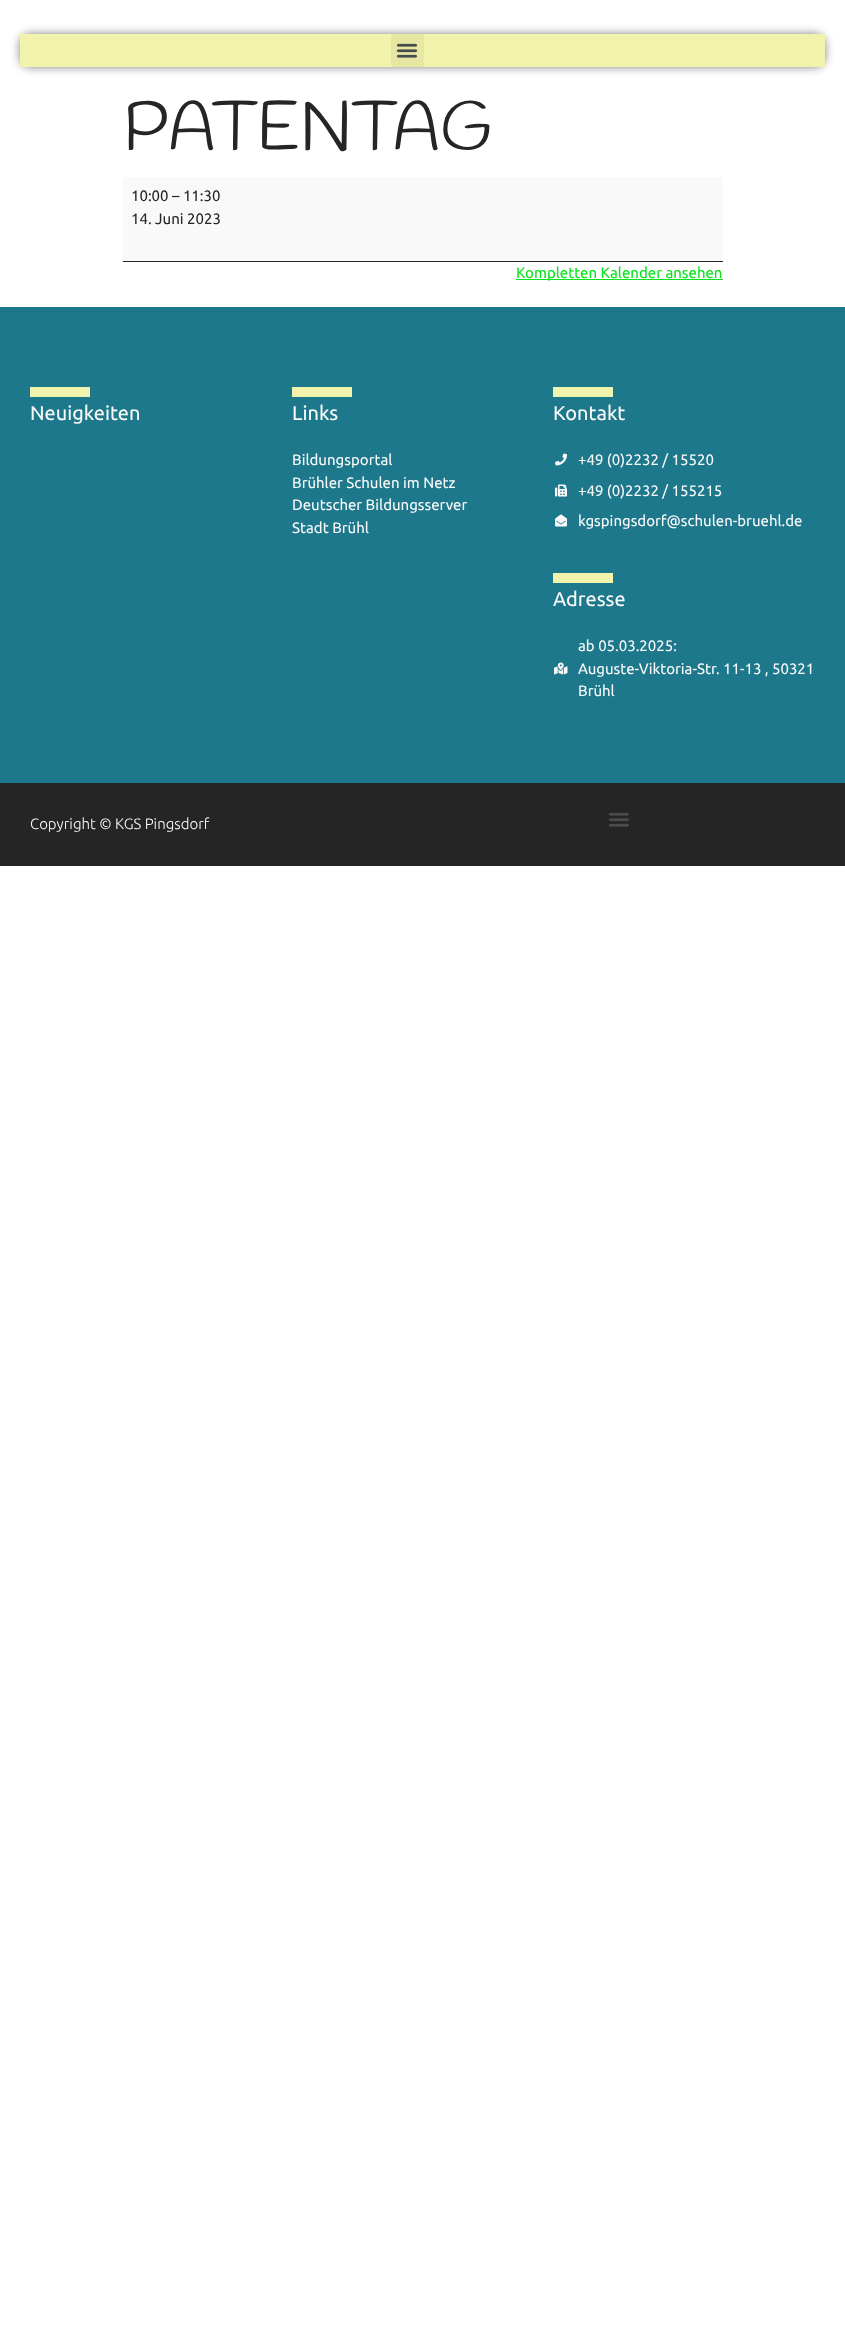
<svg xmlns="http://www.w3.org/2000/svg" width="845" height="2349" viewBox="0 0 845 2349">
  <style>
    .t1 { font: 68px Handlee; fill: #252525; }
    .t2 { font: 15px Ubuntu; fill: #252525; }
    .t3 { font: 15px Ubuntu; fill: #08e31b; }
    .t4 { font: 20px Ubuntu; fill: #fafafa; }
    .t5 { font: 15px Ubuntu; fill: #fafafa; }
    .t6 { font: 300 15px Ubuntu; fill: #fafafa; }
  </style>
  <rect width="100%" height="100%" fill="#fff"/>
  <rect x="20" y="34" width="805" height="33" rx="10" fill="#00000080" filter="blur(5px)"/>
  <rect x="20" y="34" width="805" height="33" fill="#f1f3ac"/>
  <rect x="391" y="34" width="33" height="33" rx="3" fill="#e5e7a3"/>
  <image x="396" y="43" width="22" height="15" href="images/1.png"/>
  <text x="123" y="149" class="t1">PATENTAG</text>
  <rect x="123" y="177" width="600" height="84" fill="#f9f9f9"/>
  <rect x="123" y="261" width="600" height="1" fill="#252525"/>
  <text x="131" y="201" class="t2">10:00 – 11:30</text>
  <text x="131" y="224" class="t2">14. Juni 2023</text>
  <rect x="516" y="279" width="207" height="1" fill="#08e31b"/>
  <text x="516" y="278" class="t3">Kompletten Kalender ansehen</text>
  <rect x="0" y="307" width="845" height="476" fill="#1d788b"/>
  <rect x="30" y="387" width="60" height="10" fill="#f1f3ac"/>
  <text x="30" y="420" class="t4">Neuigkeiten</text>
  <rect x="292" y="387" width="60" height="10" fill="#f1f3ac"/>
  <text x="292" y="420" class="t4">Links</text>
  <text x="292" y="465" class="t5">Bildungsportal</text>
  <text x="292" y="488" class="t5">Brühler Schulen im Netz</text>
  <text x="292" y="510" class="t5">Deutscher Bildungsserver</text>
  <text x="292" y="533" class="t5">Stadt Brühl</text>
  <rect x="553" y="387" width="60" height="10" fill="#f1f3ac"/>
  <text x="553" y="420" class="t4">Kontakt</text>
  <image x="555" y="453" width="12" height="13" href="images/2.png"/>
  <text x="578" y="465" class="t5">+49 (0)2232 / 15520</text>
  <image x="555" y="484" width="12" height="13" href="images/3.png"/>
  <text x="578" y="496" class="t5">+49 (0)2232 / 155215</text>
  <image x="555" y="514" width="12" height="13" href="images/4.png"/>
  <text x="578" y="526" class="t5">kgspingsdorf@schulen-bruehl.de</text>
  <rect x="553" y="573" width="60" height="10" fill="#f1f3ac"/>
  <text x="553" y="606" class="t4">Adresse</text>
  <image x="554" y="662" width="14" height="13" href="images/5.png"/>
  <text x="578" y="651" class="t5">ab 05.03.2025:</text>
  <text x="578" y="674" class="t5">Auguste-Viktoria-Str. 11-13 , 50321</text>
  <text x="578" y="696" class="t5">Brühl</text>
  <rect x="0" y="783" width="845" height="83" fill="#252525"/>
  <text x="30" y="829" class="t6">Copyright © KGS Pingsdorf</text>
  <image x="609" y="812" width="20" height="15" href="images/6.png"/>
</svg>
